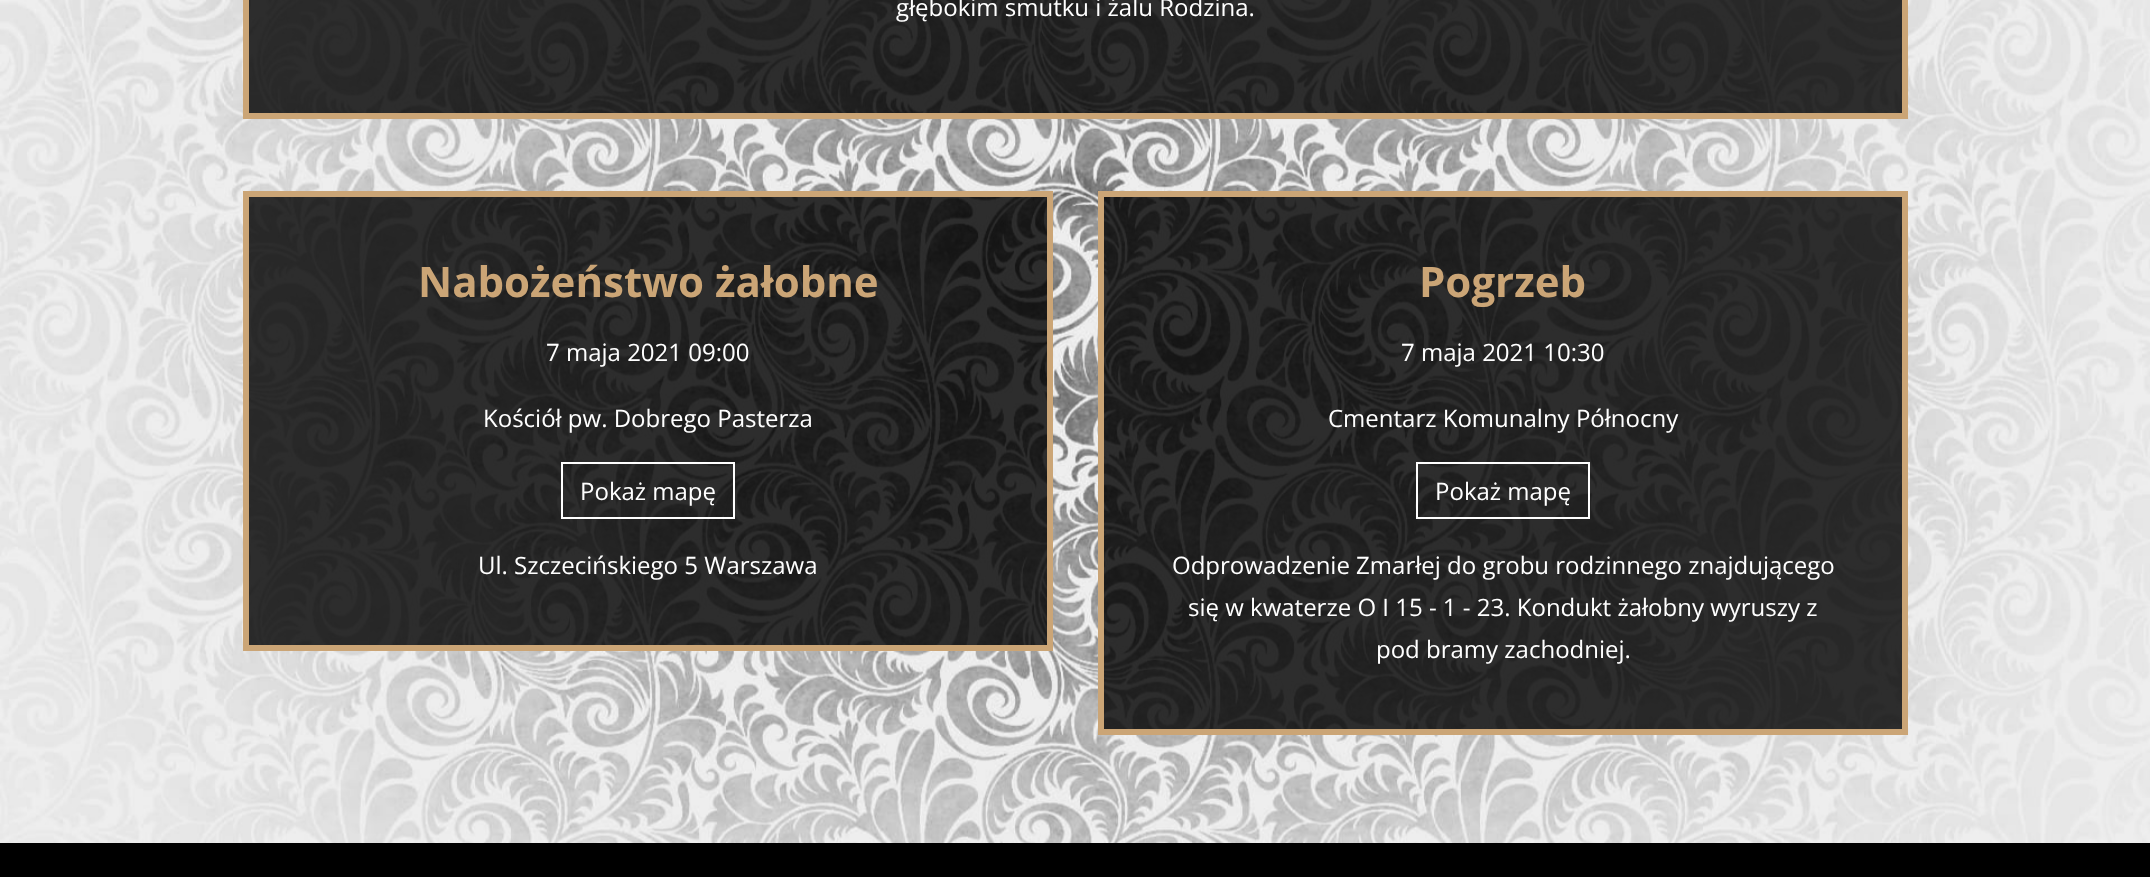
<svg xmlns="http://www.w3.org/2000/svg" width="2150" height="877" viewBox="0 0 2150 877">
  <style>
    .t1 { font: 24px Open Sans; fill: #fff; }
    .t2 { font: bold 42px Open Sans; fill: #cba576; }
  </style>
  <rect width="100%" height="100%" fill="#fff"/>
  <image x="0" y="0" width="2150" height="843" href="images/1.png"/>
  <rect x="246" y="-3" width="1659" height="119" fill="#000000cf" stroke="#cba576" stroke-width="6"/>
  <text x="896" y="16" class="t1">głębokim smutku i żalu Rodzina.</text>
  <rect x="246" y="194" width="804" height="454" fill="#000000cf" stroke="#cba576" stroke-width="6"/>
  <text x="418" y="297" class="t2">Nabożeństwo żałobne</text>
  <text x="546" y="361" class="t1">7 maja 2021 09:00</text>
  <text x="483" y="427" class="t1">Kościół pw. Dobrego Pasterza</text>
  <rect x="562" y="463" width="172" height="55" fill="none" stroke="#fff" stroke-width="2"/>
  <text x="580" y="500" class="t1">Pokaż mapę</text>
  <text x="478" y="574" class="t1">Ul. Szczecińskiego 5 Warszawa</text>
  <rect x="1101" y="194" width="804" height="538" fill="#000000cf" stroke="#cba576" stroke-width="6"/>
  <text x="1419" y="297" class="t2">Pogrzeb</text>
  <text x="1401" y="361" class="t1">7 maja 2021 10:30</text>
  <text x="1328" y="427" class="t1">Cmentarz Komunalny Północny</text>
  <rect x="1417" y="463" width="172" height="55" fill="none" stroke="#fff" stroke-width="2"/>
  <text x="1435" y="500" class="t1">Pokaż mapę</text>
  <text x="1172" y="574" class="t1">Odprowadzenie Zmarłej do grobu rodzinnego znajdującego</text>
  <text x="1188" y="616" class="t1">się w kwaterze O I 15 - 1 - 23. Kondukt żałobny wyruszy z</text>
  <text x="1376" y="658" class="t1">pod bramy zachodniej.</text>
  <rect x="0" y="843" width="2150" height="34" fill="#000"/>
</svg>
